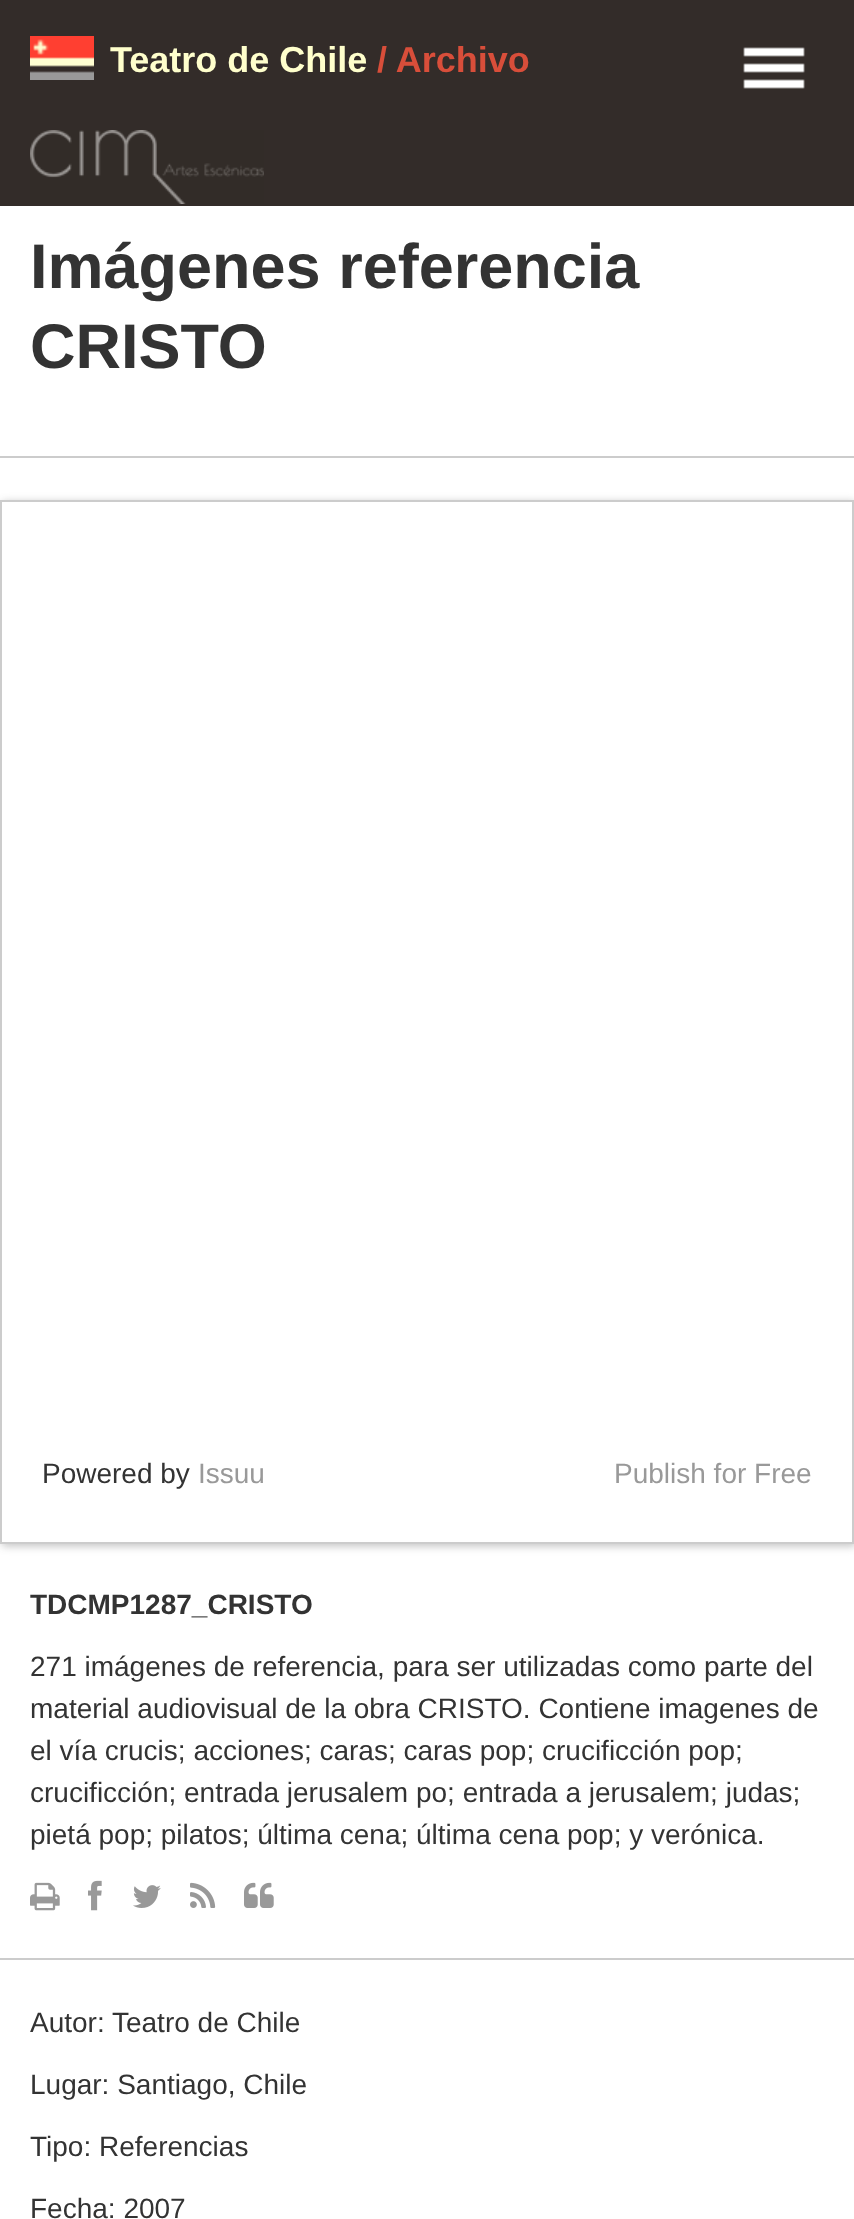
<svg xmlns="http://www.w3.org/2000/svg" width="854" height="2219" viewBox="0 0 854 2219">
  <style>
    .t1 { font: bold 36px Liberation Sans; fill: #ffc; }
    .t2 { font: bold 36px Liberation Sans; fill: #d84e3a; }
    .t3 { font: bold 63px Liberation Sans; fill: #333; }
    .t4 { font: 28px Liberation Sans; fill: #333; }
    .t5 { font: 28px Liberation Sans; fill: #999; }
    .t6 { font: bold 28px Liberation Sans; fill: #333; }
  </style>
  <defs>
    <clipPath id="clip1"><path d="M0 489H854V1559H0ZM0 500H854V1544H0Z" clip-rule="evenodd"/></clipPath>
  </defs>
  <rect width="100%" height="100%" fill="#fff"/>
  <rect x="0" y="0" width="854" height="206" fill="#332c29"/>
  <image x="30" y="36" width="64" height="44" href="images/1.png"/>
  <text x="110" y="72" class="t1">Teatro de Chile</text>
  <text x="377" y="72" class="t2">/ Archivo</text>
  <image x="30" y="130" width="234" height="74" href="images/2.png"/>
  <image x="743" y="47" width="62" height="42" href="images/3.png"/>
  <text x="30" y="288" class="t3">Imágenes referencia</text>
  <text x="30" y="368" class="t3">CRISTO</text>
  <rect x="0" y="456" width="854" height="2" fill="#ccc"/>
  <g clip-path="url(#clip1)">
    <rect x="2" y="502" width="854" height="1044" fill="#3232324d" filter="blur(4px)"/>
  </g>
  <rect x="1" y="501" width="852" height="1042" fill="none" stroke="#ccc" stroke-width="2"/>
  <text x="42" y="1483" class="t4">Powered by</text>
  <text x="198" y="1483" class="t5">Issuu</text>
  <text x="614" y="1483" class="t5">Publish for Free</text>
  <text x="30" y="1614" class="t6">TDCMP1287_CRISTO</text>
  <text x="30" y="1676" class="t4">271 imágenes de referencia, para ser utilizadas como parte del</text>
  <text x="30" y="1718" class="t4">material audiovisual de la obra CRISTO. Contiene imagenes de</text>
  <text x="30" y="1760" class="t4">el vía crucis; acciones; caras; caras pop; crucificción pop;</text>
  <text x="30" y="1802" class="t4">crucificción; entrada jerusalem po; entrada a jerusalem; judas;</text>
  <text x="30" y="1844" class="t4">pietá pop; pilatos; última cena; última cena pop; y verónica.</text>
  <image x="30" y="1882" width="30" height="29" href="images/4.png"/>
  <image x="88" y="1880" width="14" height="31" href="images/5.png"/>
  <image x="133" y="1885" width="28" height="23" href="images/6.png"/>
  <image x="190" y="1882" width="26" height="26" href="images/7.png"/>
  <image x="244" y="1882" width="30" height="26" href="images/8.png"/>
  <rect x="0" y="1958" width="854" height="2" fill="#ccc"/>
  <text x="30" y="2032" class="t4">Autor: Teatro de Chile</text>
  <text x="30" y="2094" class="t4">Lugar: Santiago, Chile</text>
  <text x="30" y="2156" class="t4">Tipo: Referencias</text>
  <text x="30" y="2218" class="t4">Fecha: 2007</text>
</svg>
